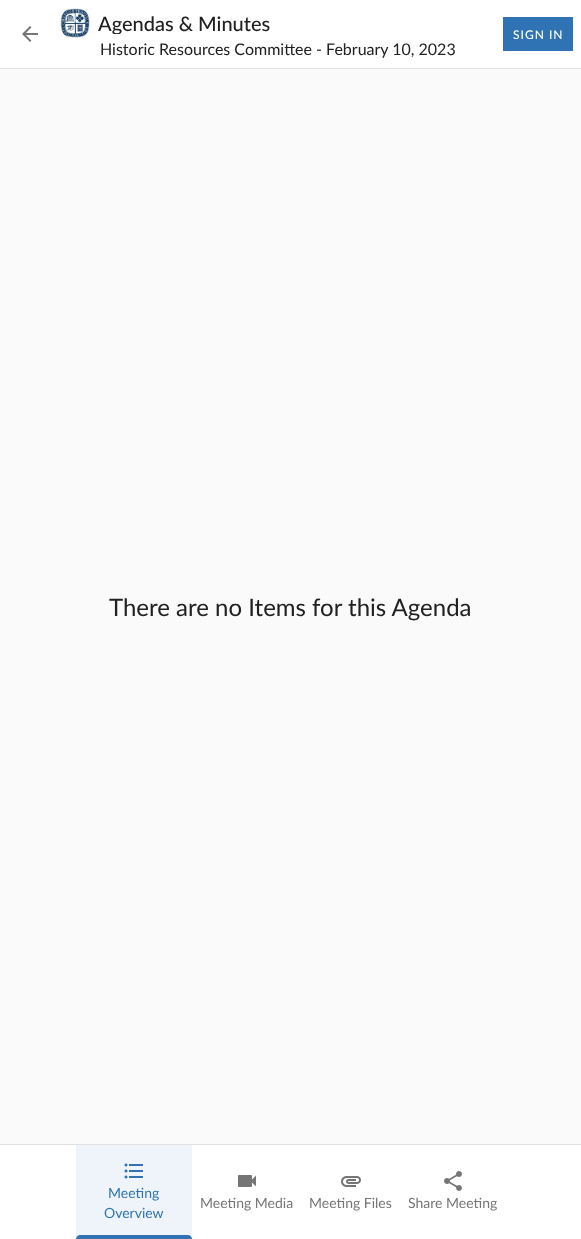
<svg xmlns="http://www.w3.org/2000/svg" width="581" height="1239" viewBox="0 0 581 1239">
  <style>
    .t1 { font: 500 20px Lato; fill: #212121; }
    .t2 { font: 16px Lato; fill: #212121; }
    .t3 { font: 500 12px Lato; letter-spacing: 1px; fill: #fff; }
    .t4 { font: 24px Lato; fill: #212121; }
    .t5 { font: 14px Lato; fill: #2f73b4; }
    .t6 { font: 14px Lato; fill: #757575; }
  </style>
  <defs>
    <clipPath id="clip1"><rect x="98" y="12" width="172" height="22"/></clipPath>
  </defs>
  <rect width="100%" height="100%" fill="#fafafa"/>
  <rect x="0" y="0" width="581" height="68" fill="#fff"/>
  <rect x="0" y="68" width="581" height="1" fill="#e0e0e0"/>
  <image x="22" y="26" width="16" height="16" href="images/1.png"/>
  <image x="60" y="8" width="30" height="30" href="images/2.png"/>
  <g clip-path="url(#clip1)">
    <text x="98" y="31" class="t1">Agendas &amp; Minutes</text>
  </g>
  <text x="100" y="55" class="t2">Historic Resources Committee - February 10, 2023</text>
  <rect x="503" y="17" width="70" height="34" fill="#2f73b4"/>
  <text x="513" y="39" class="t3">SIGN IN</text>
  <text x="109" y="616" class="t4">There are no Items for this Agenda</text>
  <rect x="0" y="1145" width="581" height="94" fill="#fff"/>
  <rect x="0" y="1144" width="581" height="1" fill="#e0e0e0"/>
  <rect x="76" y="1145" width="116" height="94" fill="#eef4f9"/>
  <image x="124" y="1163" width="19" height="16" href="images/3.png"/>
  <text x="108" y="1198" class="t5">Meeting</text>
  <text x="104" y="1218" class="t5">Overview</text>
  <path d="M80 1235H188C190 1235 192 1237 192 1239H76C76 1237 78 1235 80 1235Z" fill="#2f73b4"/>
  <image x="238" y="1175" width="18" height="12" href="images/4.png"/>
  <text x="200" y="1208" class="t6">Meeting Media</text>
  <image x="341" y="1176" width="20" height="11" href="images/5.png"/>
  <text x="309" y="1208" class="t6">Meeting Files</text>
  <image x="444" y="1171" width="18" height="20" href="images/6.png"/>
  <text x="408" y="1208" class="t6">Share Meeting</text>
</svg>
